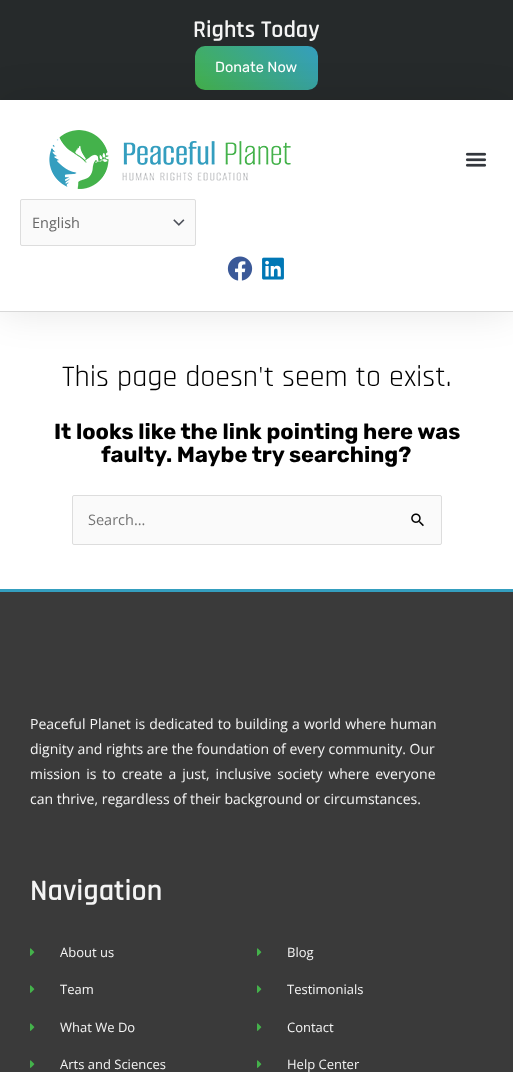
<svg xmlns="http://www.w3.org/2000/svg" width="513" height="1072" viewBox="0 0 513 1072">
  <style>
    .t1 { font: 600 24px Rajdhani; fill: #f4f4f4; }
    .t2 { font: 14.5px Rubik; fill: #fff; }
    .t3 { font: 14.5px Open Sans; fill: #666; }
    .t4 { font: 30px Rajdhani; fill: #000; }
    .t5 { font: bold 21.9px Rubik; fill: #000; }
    .t6 { font: 14.5px Open Sans; fill: #757575; }
    .t7 { font: 14px Open Sans; fill: #f4f4f4; }
    .t8 { font: 600 30px Rajdhani; fill: #f4f4f4; }
    .t9 { font: 13px Open Sans; fill: #f4f4f4; }
  </style>
  <defs>
    <linearGradient id="g1" gradientUnits="userSpaceOnUse" x1="215" y1="110" x2="298" y2="26"><stop offset="0" stop-color="#44b24b"/><stop offset="1" stop-color="#349ebf"/></linearGradient>
    <clipPath id="clip1"><path d="M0 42H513V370H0ZM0 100H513V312H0Z" clip-rule="evenodd"/></clipPath>
  </defs>
  <rect width="100%" height="100%" fill="#fff"/>
  <rect x="0" y="0" width="513" height="100" fill="#262a2b"/>
  <text x="193" y="37" class="t1">Rights Today</text>
  <rect x="195" y="46" width="123" height="44" rx="10" fill="url(#g1)"/>
  <text x="215" y="72" class="t2">Donate Now</text>
  <g clip-path="url(#clip1)">
    <rect x="0" y="100" width="513" height="212" fill="#0000001a" filter="blur(19px)"/>
  </g>
  <rect x="0" y="311" width="513" height="1" fill="#d8d8d8"/>
  <image x="49" y="130" width="242" height="59" href="images/1.png"/>
  <image x="465" y="152" width="22" height="15" href="images/2.png"/>
  <rect x="20" y="199" width="176" height="47" rx="2" fill="#fafafa"/>
  <image x="173" y="219" width="12" height="7" href="images/3.png"/>
  <rect x="20.5" y="199.5" width="175" height="46" rx="1.5" fill="none" stroke="#ddd"/>
  <text x="32" y="228" class="t3">English</text>
  <image x="227" y="256" width="26" height="25" href="images/4.png"/>
  <image x="262" y="257" width="22" height="23" href="images/5.png"/>
  <text x="62" y="386" class="t4">This page doesn't seem to exist.</text>
  <text x="54" y="439" class="t5">It looks like the link pointing here was</text>
  <text x="101" y="462" class="t5">faulty. Maybe try searching?</text>
  <rect x="72.5" y="495.5" width="369" height="49" rx="1.5" fill="#fafafa" stroke="#ddd"/>
  <text x="88" y="525" class="t6">Search...</text>
  <image x="411" y="513" width="13" height="14" href="images/6.png"/>
  <rect x="0" y="592" width="513" height="480" fill="#3a3a3a"/>
  <rect x="0" y="589" width="513" height="3" fill="#349ebf"/>
  <text x="30" y="729" word-spacing="0.5" class="t7">Peaceful Planet is dedicated to building a world where human</text>
  <text x="30" y="754" class="t7">dignity and rights are the foundation of every community. Our</text>
  <text x="30" y="779" word-spacing="2.25" class="t7">mission is to create a just, inclusive society where everyone</text>
  <text x="30" y="804" class="t7">can thrive, regardless of their background or circumstances.</text>
  <text x="30" y="900" class="t8">Navigation</text>
  <image x="30" y="948" width="5" height="8" href="images/7.png"/>
  <text x="60" y="957" class="t9">About us</text>
  <image x="30" y="985" width="5" height="8" href="images/7.png"/>
  <text x="60" y="994" class="t9">Team</text>
  <image x="30" y="1023" width="5" height="8" href="images/7.png"/>
  <text x="60" y="1032" class="t9">What We Do</text>
  <image x="30" y="1060" width="5" height="8" href="images/7.png"/>
  <text x="60" y="1069" class="t9">Arts and Sciences</text>
  <image x="257" y="948" width="5" height="8" href="images/7.png"/>
  <text x="287" y="957" class="t9">Blog</text>
  <image x="257" y="985" width="5" height="8" href="images/7.png"/>
  <text x="287" y="994" class="t9">Testimonials</text>
  <image x="257" y="1023" width="5" height="8" href="images/7.png"/>
  <text x="287" y="1032" class="t9">Contact</text>
  <image x="257" y="1060" width="5" height="8" href="images/7.png"/>
  <text x="287" y="1069" class="t9">Help Center</text>
</svg>
